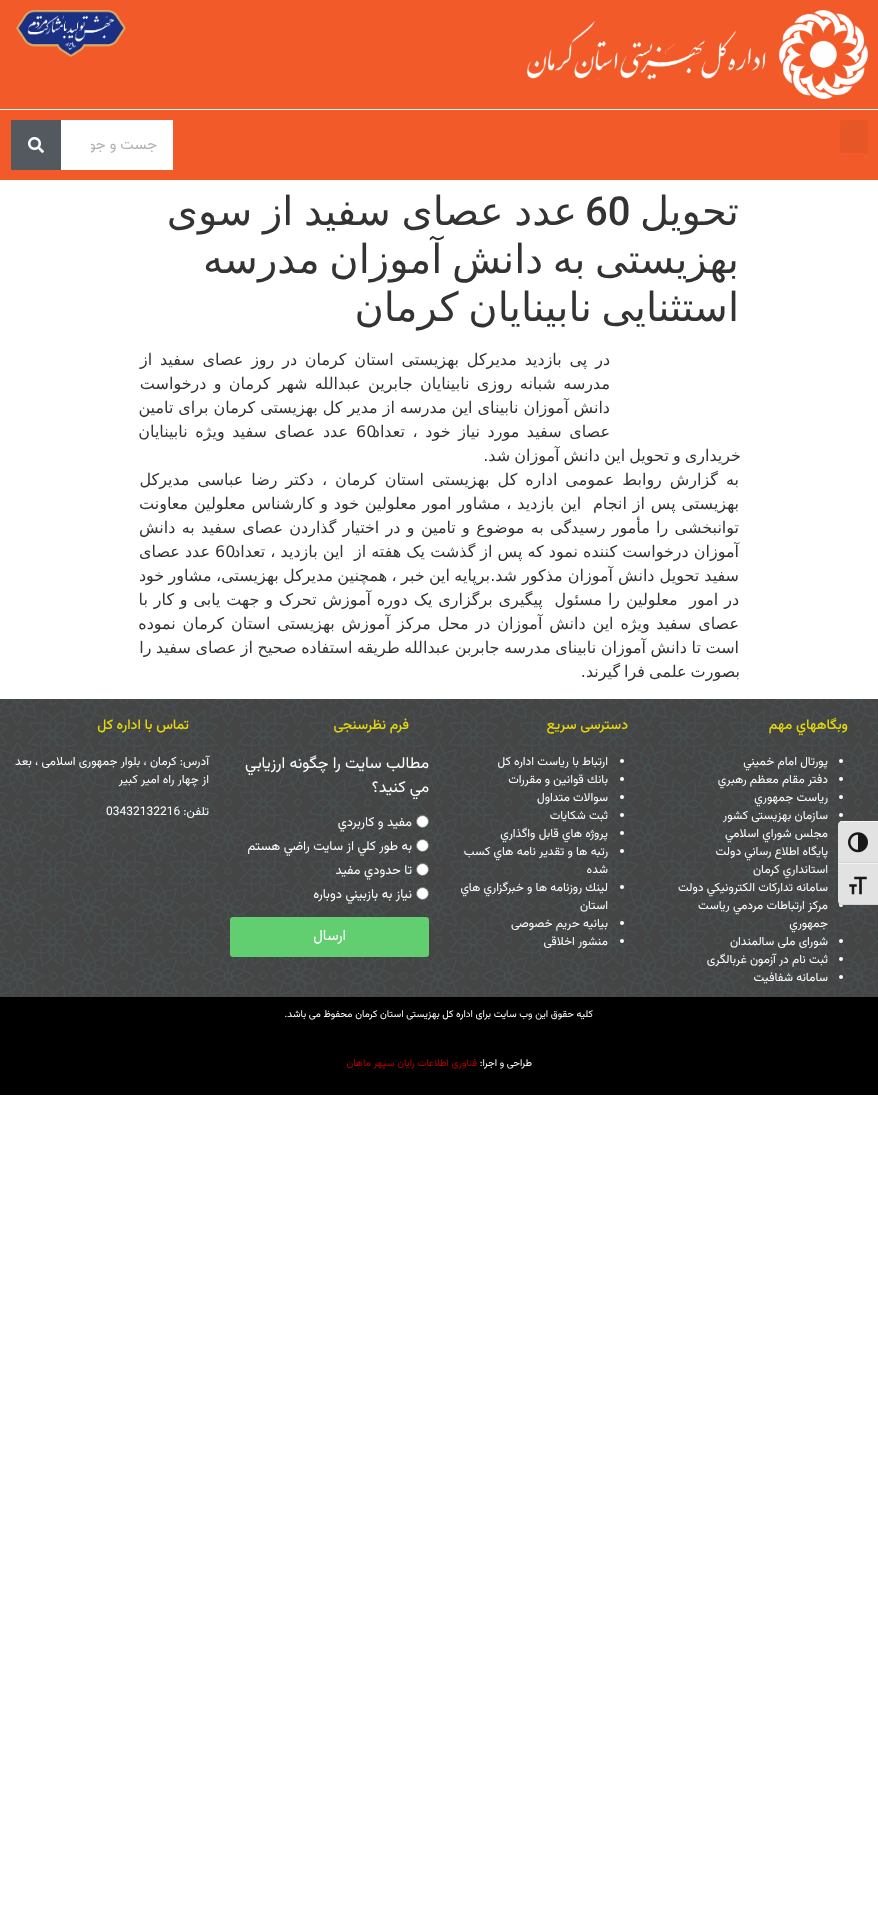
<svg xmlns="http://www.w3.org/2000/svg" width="878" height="1910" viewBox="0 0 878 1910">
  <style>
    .t1 { font: 15px Vazirmatn; direction: rtl; fill: #afafaf; }
    .t2 { font: 40px DejaVu Sans; direction: rtl; fill: #333; }
    .t3 { font: 500 40px Roboto; fill: #333; }
    .t4 { font: 16px DejaVu Sans; direction: rtl; fill: #333; }
    .t5 { font: 16px DejaVu Sans; fill: #333; }
    .t6 { font: 500 14px Vazirmatn; direction: rtl; fill: #e3d80a; }
    .t7 { font: 12px Vazirmatn; direction: rtl; fill: #fff; }
    .t8 { font: 16px Vazirmatn; direction: rtl; fill: #fff; }
    .t9 { font: 13px Vazirmatn; direction: rtl; fill: #fff; }
    .t10 { font: 15px Vazirmatn; direction: rtl; fill: #fff; }
    .t11 { font: 12px Vazirmatn; fill: #fff; }
    .t12 { font: 10px Vazirmatn; direction: rtl; fill: #fff; }
    .t13 { font: 10px Vazirmatn; direction: rtl; fill: #b60000; }
  </style>
  <defs>
    <clipPath id="clip1"><rect x="91" y="134" width="66" height="23"/></clipPath>
  </defs>
  <rect width="100%" height="100%" fill="#fff"/>
  <rect x="0" y="0" width="878" height="109" fill="#f25a29"/>
  <image x="527" y="10" width="341" height="89" href="images/1.png"/>
  <image x="16" y="10" width="110" height="47" href="images/2.png"/>
  <rect x="0" y="110" width="878" height="70" fill="#f25a29"/>
  <rect x="840" y="120" width="28" height="33" rx="3" fill="#e65627"/>
  <rect x="61" y="120" width="112" height="50" fill="#fff"/>
  <g clip-path="url(#clip1)">
    <text x="157" y="149" class="t1">جست و جو...</text>
  </g>
  <rect x="11" y="120" width="50" height="50" fill="#54595f"/>
  <image x="28" y="137" width="16" height="16" href="images/3.png"/>
  <text x="739" y="225" class="t2">تحویل</text>
  <text x="585" y="225" class="t3">60</text>
  <text x="577" y="225" word-spacing="-2" class="t2">عدد عصای سفید از سوی</text>
  <text x="739" y="273" word-spacing="-3" class="t2">بهزیستی به دانش آموزان مدرسه</text>
  <text x="739" y="321" word-spacing="-3" class="t2">استثنایی نابینایان کرمان</text>
  <text x="610" y="365" word-spacing="2.75" class="t4">در پی بازدید مدیرکل بهزیستی استان کرمان در روز عصای سفید از</text>
  <text x="610" y="389" word-spacing="2.25" class="t4">مدرسه شبانه روزی نابینایان جابرین عبدالله شهر کرمان و درخواست</text>
  <text x="610" y="413" word-spacing="-0.1" class="t4">دانش آموزان نابینای این مدرسه از مدیر کل بهزیستی کرمان برای تامین</text>
  <text x="356" y="437" class="t5">60</text>
  <text x="610" y="437" word-spacing="2.5" class="t4">عصای سفید مورد نیاز خود ، تعداد</text>
  <text x="348" y="437" word-spacing="2.5" class="t4">عدد عصای سفید ویژه نابینایان</text>
  <text x="741" y="461" word-spacing="-1" class="t4">خریداری و تحویل این دانش آموزان شد.</text>
  <text x="739" y="485" word-spacing="2.9" class="t4">به گزارش روابط عمومی اداره کل بهزیستی استان کرمان ، دکتر رضا عباسی مدیرکل</text>
  <text x="739" y="509" word-spacing="0.75" class="t4" xml:space="preserve">بهزیستی پس از انجام  این بازدید ، مشاور امور معلولین خود و کارشناس معلولین معاونت</text>
  <text x="739" y="533" word-spacing="1.25" class="t4">توانبخشی را مأمور رسیدگی به موضوع و تامین و در اختیار گذاردن عصای سفید به دانش</text>
  <text x="215" y="557" class="t5">60</text>
  <text x="739" y="557" class="t4" xml:space="preserve">آموزان درخواست کننده نمود که پس از گذشت یک هفته از  این بازدید ، تعداد</text>
  <text x="210" y="557" class="t4">عدد عصای</text>
  <text x="739" y="581" class="t4">سفید تحویل دانش آموزان مذکور شد.</text>
  <text x="490" y="581" word-spacing="-0.75" class="t4">برپایه این خبر ، همچنین مدیرکل بهزیستی، مشاور خود</text>
  <text x="739" y="605" word-spacing="0.75" class="t4" xml:space="preserve">در امور  معلولین را مسئول  پیگیری برگزاری یک دوره آموزش تحرک و جهت یابی و کار با</text>
  <text x="739" y="629" word-spacing="1.75" class="t4">عصای سفید ویژه این دانش آموزان در محل مرکز آموزش بهزیستی استان کرمان نموده</text>
  <text x="739" y="653" word-spacing="-0.5" class="t4">است تا دانش آموزان نابینای مدرسه جابربن عبدالله طریقه استفاده صحیح از عصای سفید را</text>
  <text x="740" y="677" word-spacing="-1" class="t4">بصورت علمی فرا گیرند.</text>
  <rect x="0" y="699" width="878" height="298" fill="#454545"/>
  <image x="0" y="699" width="878" height="298" href="images/6.png"/>
  <path d="M842 821H878V863H838V825C838 823 840 821 842 821Z" fill="#e2e2e2"/>
  <path d="M842 822H878V821H842C840 821 838 823 838 825C838 823 840 822 842 822Z" fill="#f5f5f5"/>
  <rect x="838" y="862" width="40" height="1" fill="#d2d2d2"/>
  <image x="848" y="832" width="20" height="21" href="images/4.png"/>
  <circle cx="841" cy="905" r="2" fill="#fff"/>
  <path d="M838 863H878V905H842C840 905 838 903 838 901Z" fill="#e2e2e2"/>
  <rect x="838" y="863" width="40" height="1" fill="#f5f5f5"/>
  <path d="M878 905V904H842C840 904 838 903 838 901C838 903 840 905 842 905Z" fill="#d2d2d2"/>
  <image x="849" y="876" width="18" height="19" href="images/5.png"/>
  <text x="848" y="729" class="t6">وبگاههاي مهم</text>
  <circle cx="841" cy="761" r="2" fill="#fff"/>
  <text x="828" y="765" class="t7">پورتال امام خميني</text>
  <circle cx="841" cy="779" r="2" fill="#fff"/>
  <text x="828" y="783" class="t7">دفتر مقام معظم رهبري</text>
  <circle cx="841" cy="797" r="2" fill="#fff"/>
  <text x="828" y="801" class="t7">رياست جمهوري</text>
  <circle cx="841" cy="815" r="2" fill="#fff"/>
  <text x="828" y="819" class="t7">سازمان بهزیستی کشور</text>
  <text x="828" y="837" class="t7">مجلس شوراي اسلامي</text>
  <text x="828" y="855" class="t7">پايگاه اطلاع رساني دولت</text>
  <text x="828" y="873" class="t7">استانداري كرمان</text>
  <text x="828" y="891" class="t7">سامانه تداركات الكترونيكي دولت</text>
  <text x="828" y="909" class="t7">مركز ارتباطات مردمي رياست</text>
  <text x="828" y="927" class="t7">جمهوري</text>
  <circle cx="841" cy="941" r="2" fill="#fff"/>
  <text x="828" y="945" class="t7">شورای ملی سالمندان</text>
  <circle cx="841" cy="959" r="2" fill="#fff"/>
  <text x="828" y="963" class="t7">ثبت نام در آزمون غربالگری</text>
  <circle cx="841" cy="977" r="2" fill="#fff"/>
  <text x="828" y="981" class="t7">سامانه شفافیت</text>
  <text x="628" y="729" class="t6">دسترسی سریع</text>
  <circle cx="622" cy="761" r="2" fill="#fff"/>
  <text x="608" y="765" class="t7">ارتباط با رياست اداره کل</text>
  <circle cx="622" cy="779" r="2" fill="#fff"/>
  <text x="608" y="783" class="t7">بانك قوانين و مقررات</text>
  <circle cx="622" cy="797" r="2" fill="#fff"/>
  <text x="608" y="801" class="t7">سوالات متداول</text>
  <circle cx="622" cy="815" r="2" fill="#fff"/>
  <text x="608" y="819" class="t7">ثبت شكايات</text>
  <circle cx="622" cy="833" r="2" fill="#fff"/>
  <text x="608" y="837" class="t7">پروژه هاي قابل واگذاري</text>
  <circle cx="622" cy="851" r="2" fill="#fff"/>
  <text x="608" y="855" class="t7">رتبه ها و تقدير نامه هاي كسب</text>
  <text x="608" y="873" class="t7">شده</text>
  <circle cx="622" cy="887" r="2" fill="#fff"/>
  <text x="608" y="891" class="t7">لينك روزنامه ها و خبرگزاري هاي</text>
  <text x="608" y="909" class="t7">استان</text>
  <circle cx="622" cy="923" r="2" fill="#fff"/>
  <text x="608" y="927" class="t7">بیانیه حریم خصوصی</text>
  <circle cx="622" cy="941" r="2" fill="#fff"/>
  <text x="608" y="945" class="t7">منشور اخلاقی</text>
  <text x="409" y="729" class="t6">فرم نظرسنجی</text>
  <text x="429" y="768" class="t8">مطالب سايت را چگونه ارزيابي</text>
  <text x="429" y="792" class="t8">مي كنيد؟</text>
  <circle cx="422.5" cy="821.5" r="6" fill="#fff" stroke="#767676"/>
  <text x="412" y="826" class="t9">مفيد و كاربردي</text>
  <circle cx="422.5" cy="845.5" r="6" fill="#fff" stroke="#767676"/>
  <text x="412" y="850" class="t9">به طور كلي از سايت راضي هستم</text>
  <circle cx="422.5" cy="869.5" r="6" fill="#fff" stroke="#767676"/>
  <text x="412" y="874" class="t9">تا حدودي مفيد</text>
  <circle cx="422.5" cy="893.5" r="6" fill="#fff" stroke="#767676"/>
  <text x="412" y="898" class="t9">نياز به بازبيني دوباره</text>
  <rect x="230" y="917" width="199" height="40" rx="3" fill="#61ce70"/>
  <text x="346" y="940" class="t10">ارسال</text>
  <text x="189" y="729" class="t6">تماس با اداره کل</text>
  <text x="209" y="765" class="t7">آدرس: کرمان ، بلوار جمهوری اسلامی ، بعد</text>
  <text x="209" y="783" class="t7">از چهار راه امیر کبیر</text>
  <text x="209" y="815" class="t7">تلفن:</text>
  <text x="106" y="815" class="t11">03432132216</text>
  <rect x="0" y="997" width="878" height="98" fill="#000"/>
  <text x="593" y="1017" class="t12">کلیه حقوق این وب سایت برای اداره کل بهزیستی استان کرمان محفوظ می باشد.</text>
  <text x="532" y="1066" class="t12">طراحی و اجرا:</text>
  <text x="477" y="1066" class="t13">فناوری اطلاعات رایان سپهر ماهان</text>
</svg>
